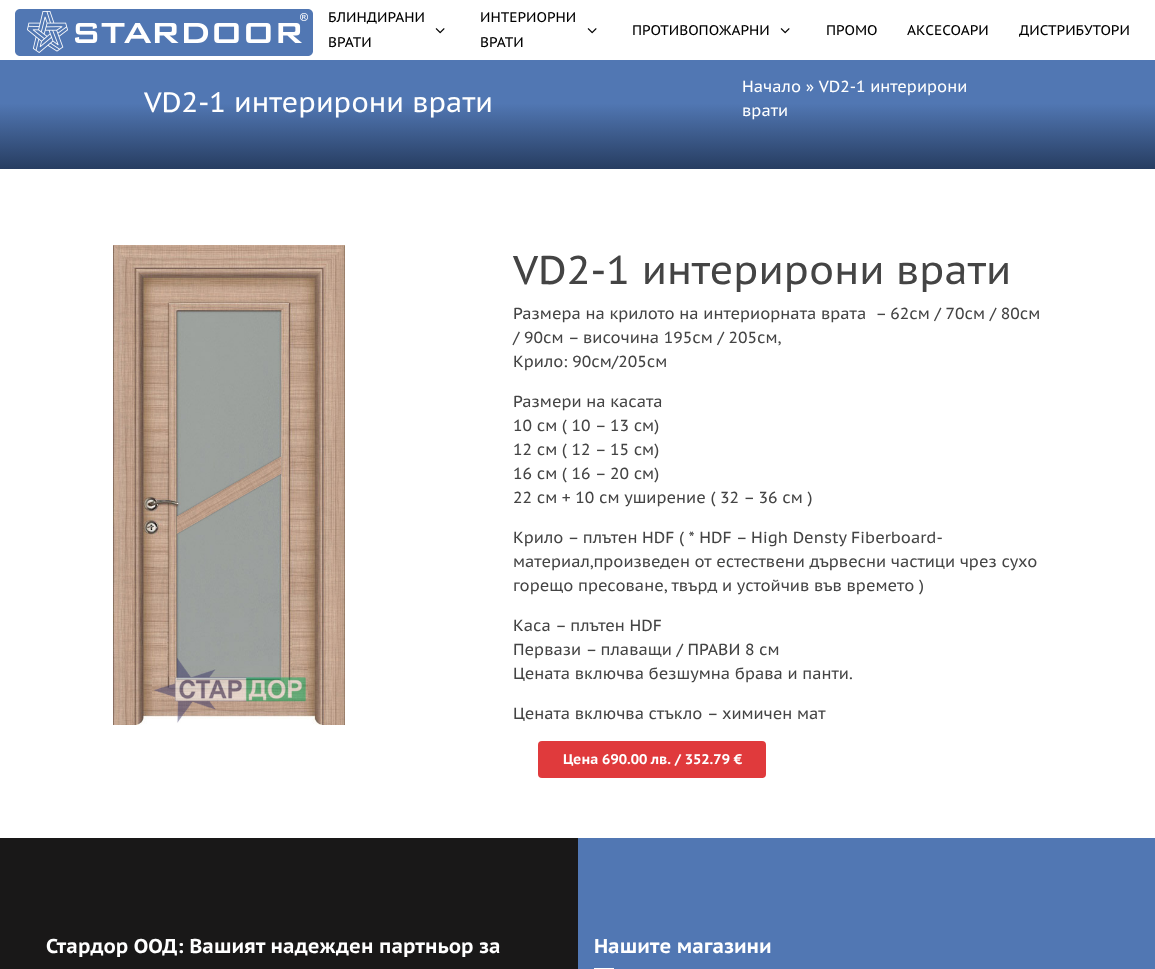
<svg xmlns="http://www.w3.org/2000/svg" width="1155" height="969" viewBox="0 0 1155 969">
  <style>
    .t1 { font: 14px PT Sans Caption; fill: #000; }
    .t2 { font: 28px PT Sans Caption; fill: #fff; }
    .t3 { font: 16px PT Sans Caption; fill: #fff; }
    .t4 { font: 40px PT Sans Caption; fill: #444; }
    .t5 { font: 16px PT Sans Caption; fill: #444; }
    .t6 { font: bold 14px PT Sans Caption; fill: #fff; }
    .t7 { font: bold 20px PT Sans Caption; fill: #fff; }
  </style>
  <defs>
    <linearGradient id="g1" gradientUnits="userSpaceOnUse" x1="578" y1="43" x2="578" y2="169"><stop offset="0.48" stop-color="#5177b3"/><stop offset="1" stop-color="#273d61"/></linearGradient>
  </defs>
  <rect width="100%" height="100%" fill="#fff"/>
  <image x="15" y="9" width="298" height="47" href="images/1.png"/>
  <text x="328" y="22" class="t1">БЛИНДИРАНИ</text>
  <text x="328" y="47" class="t1">ВРАТИ</text>
  <image x="435" y="28" width="10" height="6" href="images/2.png"/>
  <text x="480" y="22" class="t1">ИНТЕРИОРНИ</text>
  <text x="480" y="47" class="t1">ВРАТИ</text>
  <image x="587" y="28" width="10" height="6" href="images/2.png"/>
  <text x="632" y="35" class="t1">ПРОТИВОПОЖАРНИ</text>
  <image x="780" y="28" width="10" height="6" href="images/2.png"/>
  <text x="826" y="35" class="t1">ПРОМО</text>
  <text x="907" y="35" class="t1">АКСЕСОАРИ</text>
  <text x="1019" y="35" class="t1">ДИСТРИБУТОРИ</text>
  <rect x="0" y="60" width="1155" height="109" fill="url(#g1)"/>
  <text x="144" y="112" class="t2">VD2-1 интерирони врати</text>
  <text x="742" y="92" class="t3">Начало » VD2-1 интерирони</text>
  <text x="742" y="116" class="t3">врати</text>
  <image x="113" y="245" width="232" height="480" href="images/3.png"/>
  <text x="513" y="284" class="t4">VD2-1 интерирони врати</text>
  <text x="513" y="319" class="t5" xml:space="preserve">Размера на крилото на интериорната врата  – 62см / 70см / 80см</text>
  <text x="513" y="343" class="t5">/ 90см – височина 195см / 205см,</text>
  <text x="513" y="367" class="t5">Крило: 90см/205см</text>
  <text x="513" y="407" class="t5">Размери на касата</text>
  <text x="513" y="431" class="t5">10 см ( 10 – 13 см)</text>
  <text x="513" y="455" class="t5">12 см ( 12 – 15 см)</text>
  <text x="513" y="479" class="t5">16 см ( 16 – 20 см)</text>
  <text x="513" y="503" class="t5">22 см + 10 см уширение ( 32 – 36 см )</text>
  <text x="513" y="543" class="t5">Крило – плътен HDF ( * HDF – High Densty Fiberboard-</text>
  <text x="513" y="567" class="t5">материал,произведен от естествени дървесни частици чрез сухо</text>
  <text x="513" y="591" class="t5">горещо пресоване, твърд и устойчив във времето )</text>
  <text x="513" y="631" class="t5">Каса – плътен HDF</text>
  <text x="513" y="655" class="t5">Первази – плаващи / ПРАВИ 8 см</text>
  <text x="513" y="679" class="t5">Цената включва безшумна брава и панти.</text>
  <text x="513" y="719" class="t5">Цената включва стъкло – химичен мат</text>
  <rect x="538" y="741" width="228" height="37" rx="4" fill="#e03a3c"/>
  <text x="563" y="764" class="t6">Цена 690.00 лв. / 352.79 €</text>
  <rect x="0" y="838" width="578" height="131" fill="#191818"/>
  <text x="46" y="953" word-spacing="0.25" class="t7">Стардор ООД: Вашият надежден партньор за</text>
  <rect x="578" y="838" width="577" height="131" fill="#5177b3"/>
  <text x="594" y="953" class="t7">Нашите магазини</text>
  <rect x="594" y="968" width="20" height="1" fill="#fff"/>
</svg>
